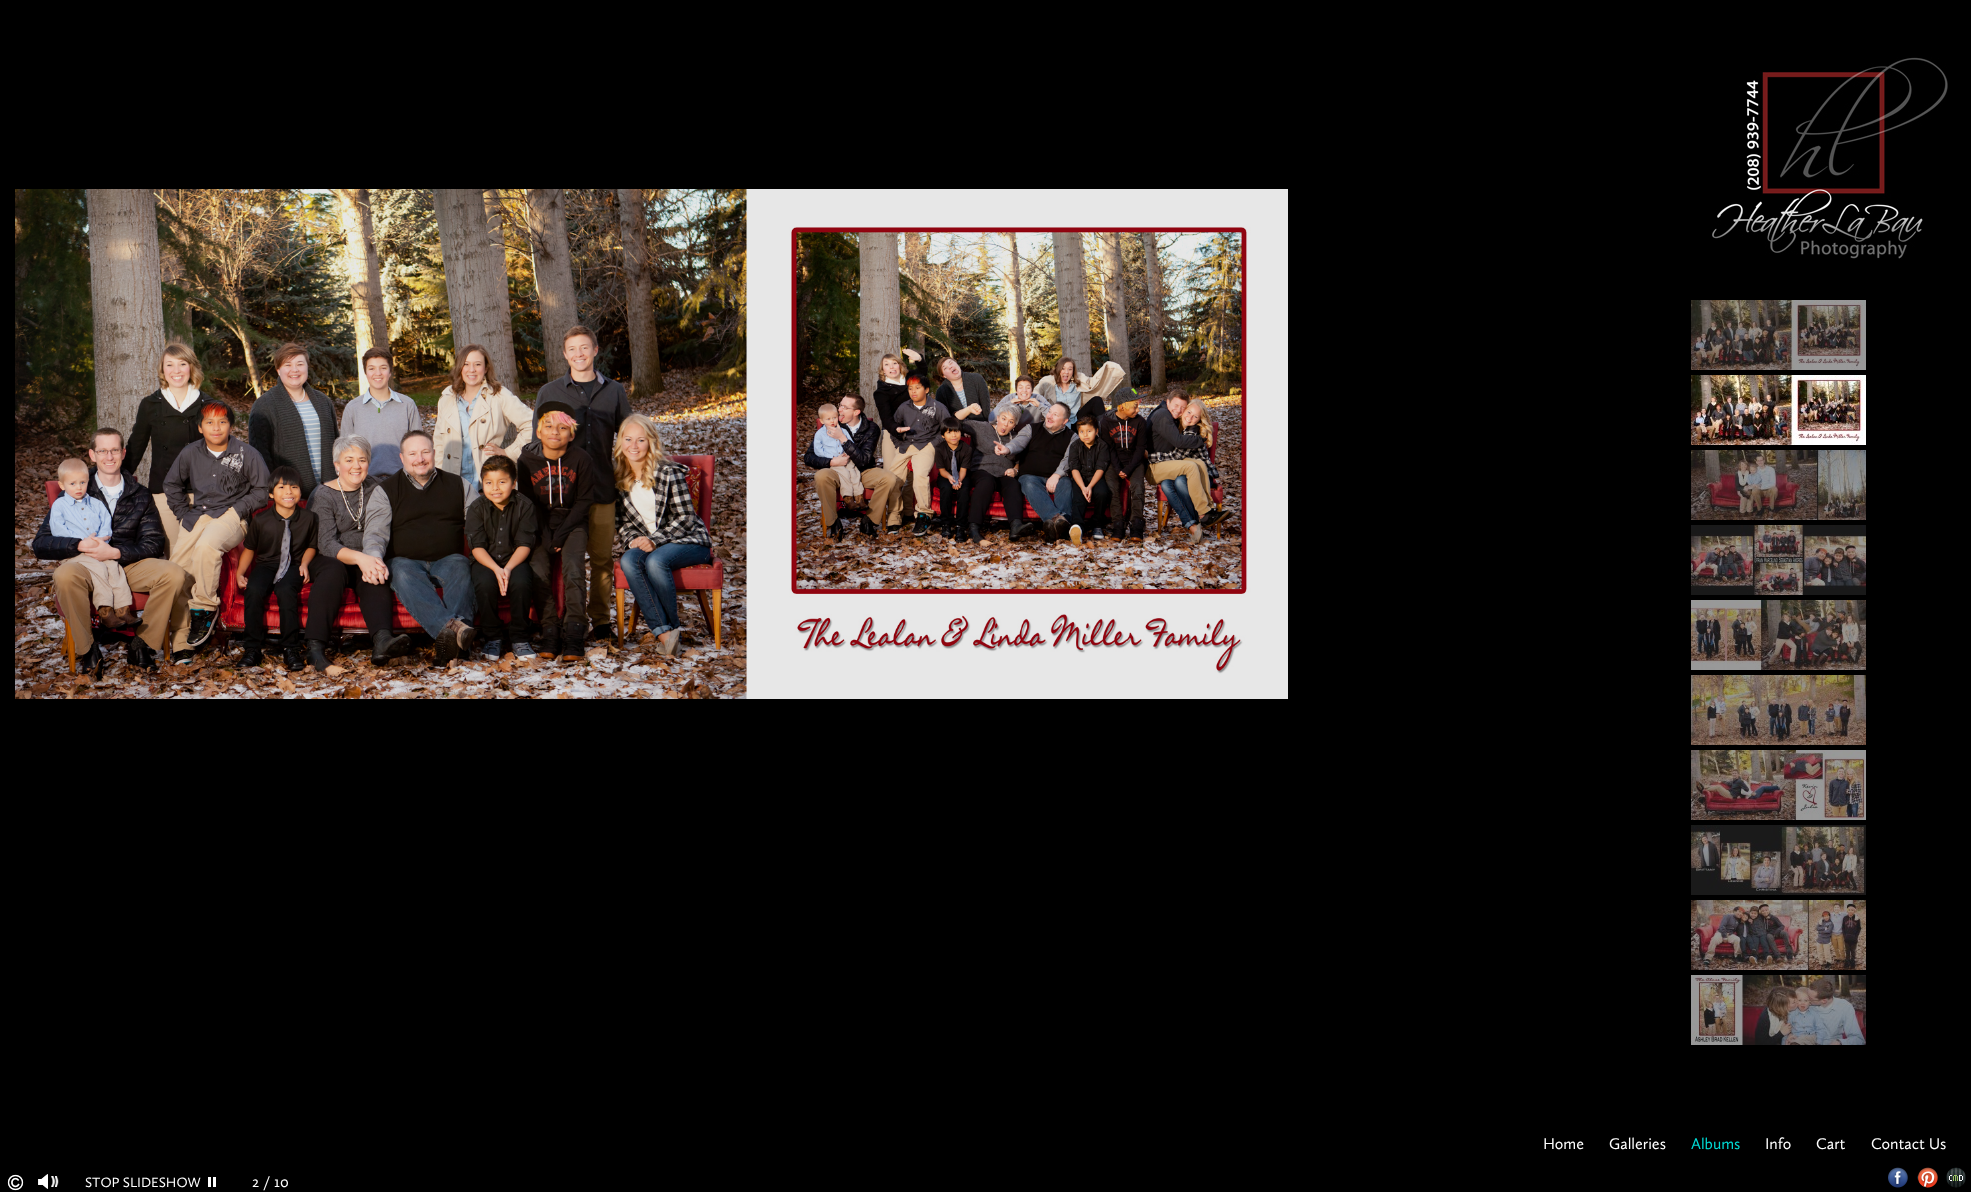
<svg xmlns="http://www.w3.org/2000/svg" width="1971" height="1192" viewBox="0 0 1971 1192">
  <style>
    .t1 { font: 16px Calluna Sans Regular; fill: #fff; }
    .t2 { font: 16px Calluna Sans Regular; fill: #00d9d4; }
    .t3 { font: 14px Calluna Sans; fill: #fff; }
    .t4 { font: 16px Calluna Sans; fill: #fff; }
  </style>
  <rect width="100%" height="100%" fill="#000"/>
  <image x="1712" y="57" width="236" height="202" href="images/1.png"/>
  <image x="15" y="189" width="1273" height="510" href="images/2.png"/>
  <rect x="1691" y="300" width="175" height="70" fill="#333"/>
  <image x="1691" y="300" width="175" height="70" href="images/3.png"/>
  <image x="1691" y="375" width="175" height="70" href="images/4.png"/>
  <rect x="1691" y="450" width="175" height="70" fill="#333"/>
  <image x="1691" y="450" width="175" height="70" href="images/5.png"/>
  <rect x="1691" y="525" width="175" height="70" fill="#333"/>
  <image x="1691" y="525" width="175" height="70" href="images/6.png"/>
  <rect x="1691" y="600" width="175" height="70" fill="#333"/>
  <image x="1691" y="600" width="175" height="70" href="images/7.png"/>
  <rect x="1691" y="675" width="175" height="70" fill="#333"/>
  <image x="1691" y="675" width="175" height="70" href="images/8.png"/>
  <rect x="1691" y="750" width="175" height="70" fill="#333"/>
  <image x="1691" y="750" width="175" height="70" href="images/9.png"/>
  <rect x="1691" y="825" width="175" height="70" fill="#333"/>
  <image x="1691" y="825" width="175" height="70" href="images/10.png"/>
  <rect x="1691" y="900" width="175" height="70" fill="#333"/>
  <image x="1691" y="900" width="175" height="70" href="images/11.png"/>
  <rect x="1691" y="975" width="175" height="70" fill="#333"/>
  <image x="1691" y="975" width="175" height="70" href="images/12.png"/>
  <text x="1543" y="1149" class="t1">Home</text>
  <text x="1609" y="1149" class="t1">Galleries</text>
  <text x="1691" y="1149" class="t2">Albums</text>
  <text x="1765" y="1149" class="t1">Info</text>
  <text x="1816" y="1149" class="t1">Cart</text>
  <text x="1871" y="1149" class="t1">Contact Us</text>
  <image x="7" y="1174" width="17" height="17" href="images/13.png"/>
  <image x="38" y="1174" width="21" height="15" href="images/14.png"/>
  <image x="208" y="1177" width="8" height="10" href="images/15.png"/>
  <text x="85" y="1187" class="t3">STOP SLIDESHOW</text>
  <text x="252" y="1187" class="t4">2 / 10</text>
  <image x="1888" y="1167" width="20" height="21" href="images/16.png"/>
  <image x="1917" y="1167" width="21" height="21" href="images/17.png"/>
  <image x="1946" y="1167" width="20" height="21" href="images/18.png"/>
</svg>
